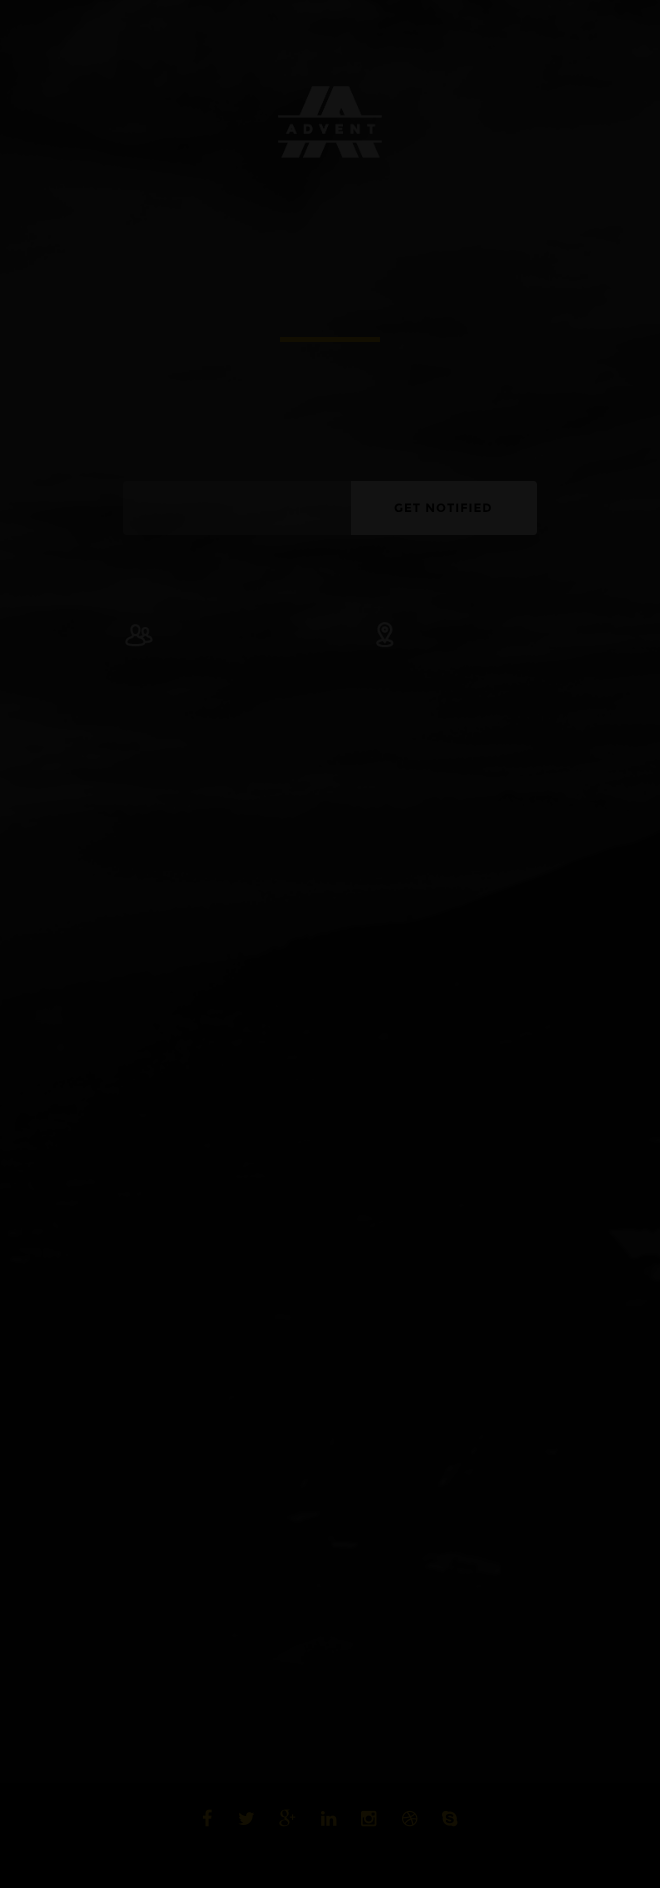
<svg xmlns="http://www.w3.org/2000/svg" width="660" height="1888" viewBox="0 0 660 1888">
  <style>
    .t1 { font: bold 12px Montserrat; letter-spacing: 1px; fill: #000; }
  </style>
  <rect width="100%" height="100%" fill="#fff"/>
  <image x="0" y="0" width="660" height="1783" href="images/1.png"/>
  <image x="278" y="86" width="104" height="72" href="images/2.png"/>
  <rect x="280" y="337" width="100" height="5" fill="#120e01"/>
  <path d="M126 481H351V535H126C124.5 535 123 533.5 123 532V484C123 482.5 124.5 481 126 481Z" fill="#12121240"/>
  <path d="M351 481H534C535.5 481 537 482.5 537 484V532C537 533.5 535.5 535 534 535H351Z" fill="#121212"/>
  <text x="394" y="512" class="t1">GET NOTIFIED</text>
  <image x="125" y="624" width="28" height="23" href="images/3.png"/>
  <image x="376" y="622" width="18" height="26" href="images/4.png"/>
  <rect x="0" y="1783" width="660" height="105" fill="#000"/>
  <image x="202" y="1809" width="10" height="18" href="images/5.png"/>
  <image x="238" y="1812" width="17" height="13" href="images/6.png"/>
  <image x="279" y="1809" width="17" height="18" href="images/7.png"/>
  <image x="321" y="1811" width="16" height="15" href="images/8.png"/>
  <image x="361" y="1810" width="16" height="17" href="images/9.png"/>
  <image x="402" y="1810" width="16" height="17" href="images/10.png"/>
  <image x="442" y="1810" width="16" height="17" href="images/11.png"/>
</svg>
